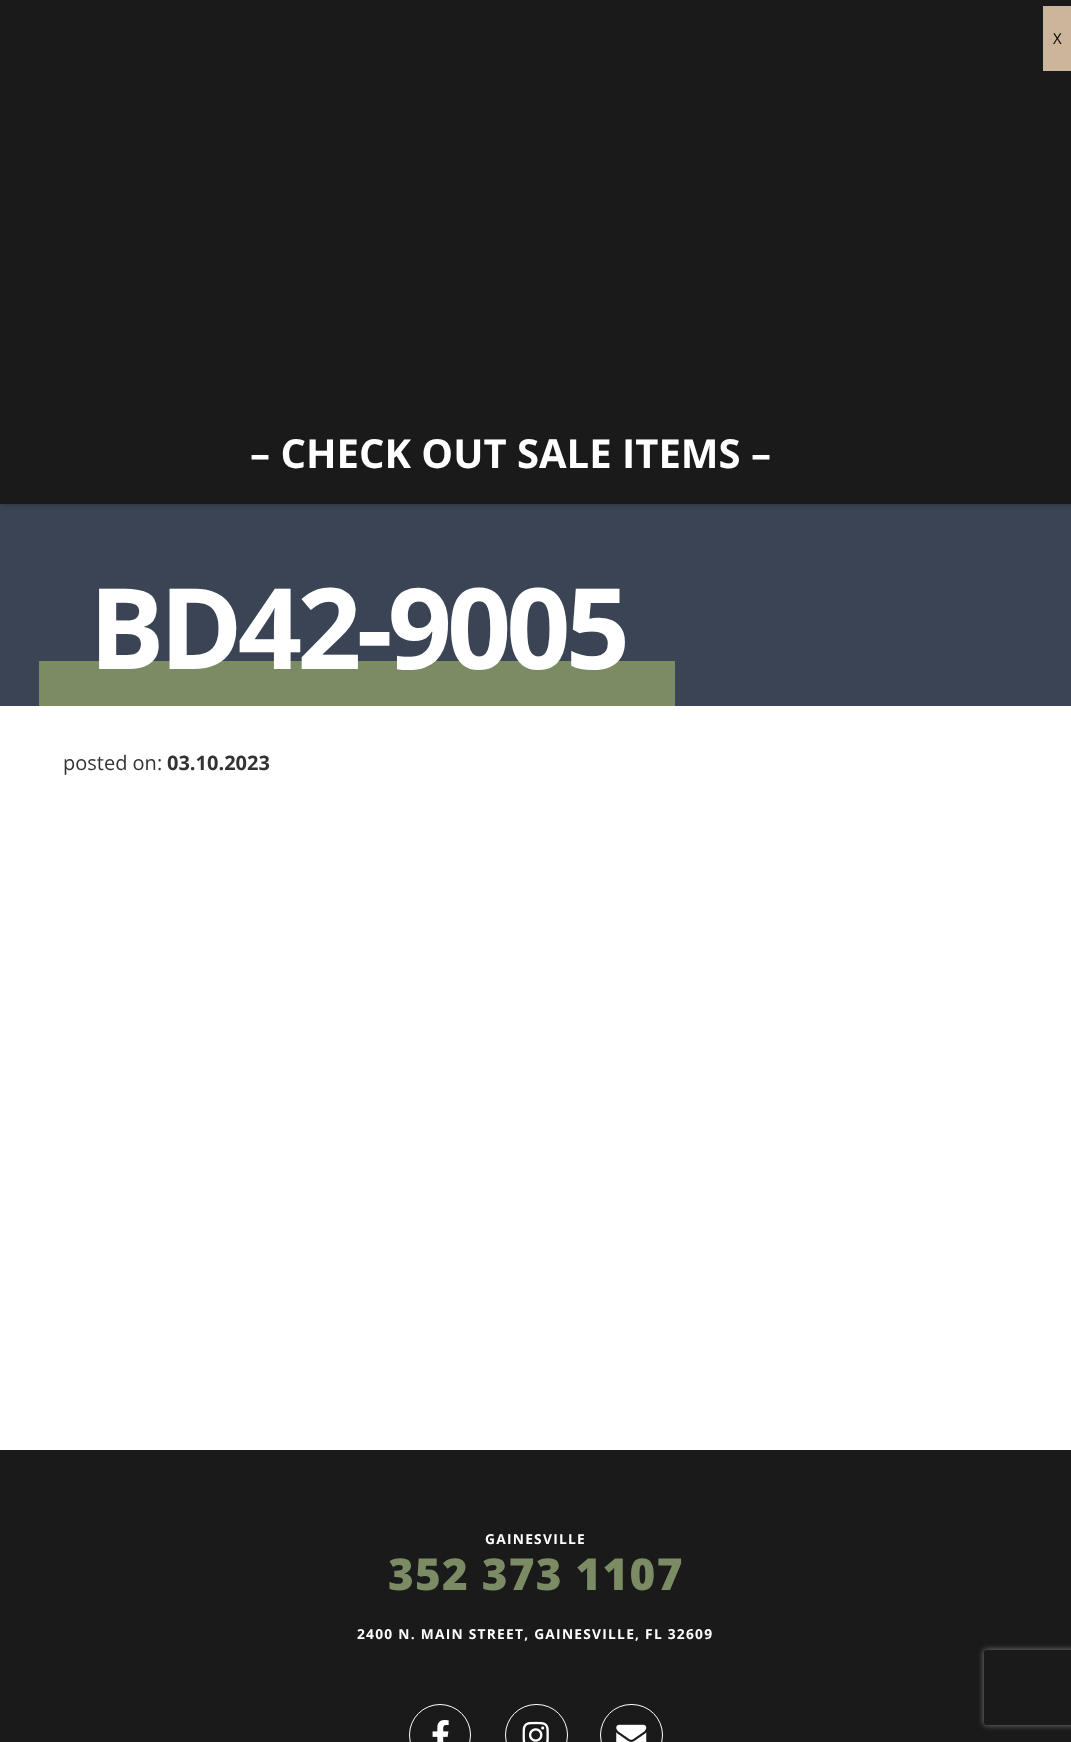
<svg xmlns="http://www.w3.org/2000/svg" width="1071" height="1742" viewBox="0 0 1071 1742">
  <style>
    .t1 { font: 15px Open Sans; fill: #000; }
    .t2 { font: bold 40px Open Sans; fill: #fff; }
    .t3 { font: bold 112.5px Open Sans; letter-spacing: -5px; fill: #fff; }
    .t4 { font: 20px Open Sans; fill: #333; }
    .t5 { font: bold 20px Open Sans; fill: #333; }
    .t6 { font: bold 13.75px Open Sans; letter-spacing: 1.25px; fill: #fff; }
    .t7 { font: 800 44px Open Sans; letter-spacing: 1.25px; fill: #7b8c64; }
  </style>
  <defs>
    <clipPath id="clip1"><path d="M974 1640H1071V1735H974ZM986.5 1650H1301.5C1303 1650 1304 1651 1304 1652.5V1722.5C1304 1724 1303 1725 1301.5 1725H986.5C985 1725 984 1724 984 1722.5V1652.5C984 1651 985 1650 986.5 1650Z" clip-rule="evenodd"/></clipPath>
  </defs>
  <rect width="100%" height="100%" fill="#fff"/>
  <rect x="0" y="504" width="1071" height="202" fill="#3a4454"/>
  <rect x="1" y="1" width="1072" height="504" fill="#0202023b" filter="blur(2px)"/>
  <rect x="0" y="0" width="1071" height="504" fill="#1a1a1a"/>
  <rect x="1043" y="6" width="28" height="65" fill="#ccb69b"/>
  <text x="1053" y="44" class="t1">X</text>
  <text x="250" y="468" class="t2">– CHECK OUT SALE ITEMS –</text>
  <rect x="39" y="661" width="636" height="45" fill="#7b8c64"/>
  <text x="89" y="669" class="t3">BD42-9005</text>
  <text x="63" y="770" class="t4">posted on:</text>
  <text x="167" y="770" class="t5">03.10.2023</text>
  <rect x="0" y="1450" width="1071" height="292" fill="#1a1a1a"/>
  <text x="485" y="1544" class="t6">GAINESVILLE</text>
  <text x="388" y="1590" class="t7">352 373 1107</text>
  <text x="357" y="1639" class="t6">2400 N. MAIN STREET, GAINESVILLE, FL 32609</text>
  <circle cx="440" cy="1735" r="30.5" fill="none" stroke="#fff"/>
  <image x="432" y="1720" width="17" height="22" href="images/1.png"/>
  <rect x="505.5" y="1704.5" width="62" height="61" rx="30.5" fill="none" stroke="#fff"/>
  <image x="522" y="1721" width="27" height="21" href="images/2.png"/>
  <rect x="600.5" y="1704.5" width="62" height="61" rx="30.5" fill="none" stroke="#fff"/>
  <image x="616" y="1724" width="31" height="18" href="images/3.png"/>
  <g clip-path="url(#clip1)">
    <rect x="984" y="1650" width="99" height="75" rx="2.5" fill="#808080" filter="blur(3px)"/>
  </g>
</svg>
